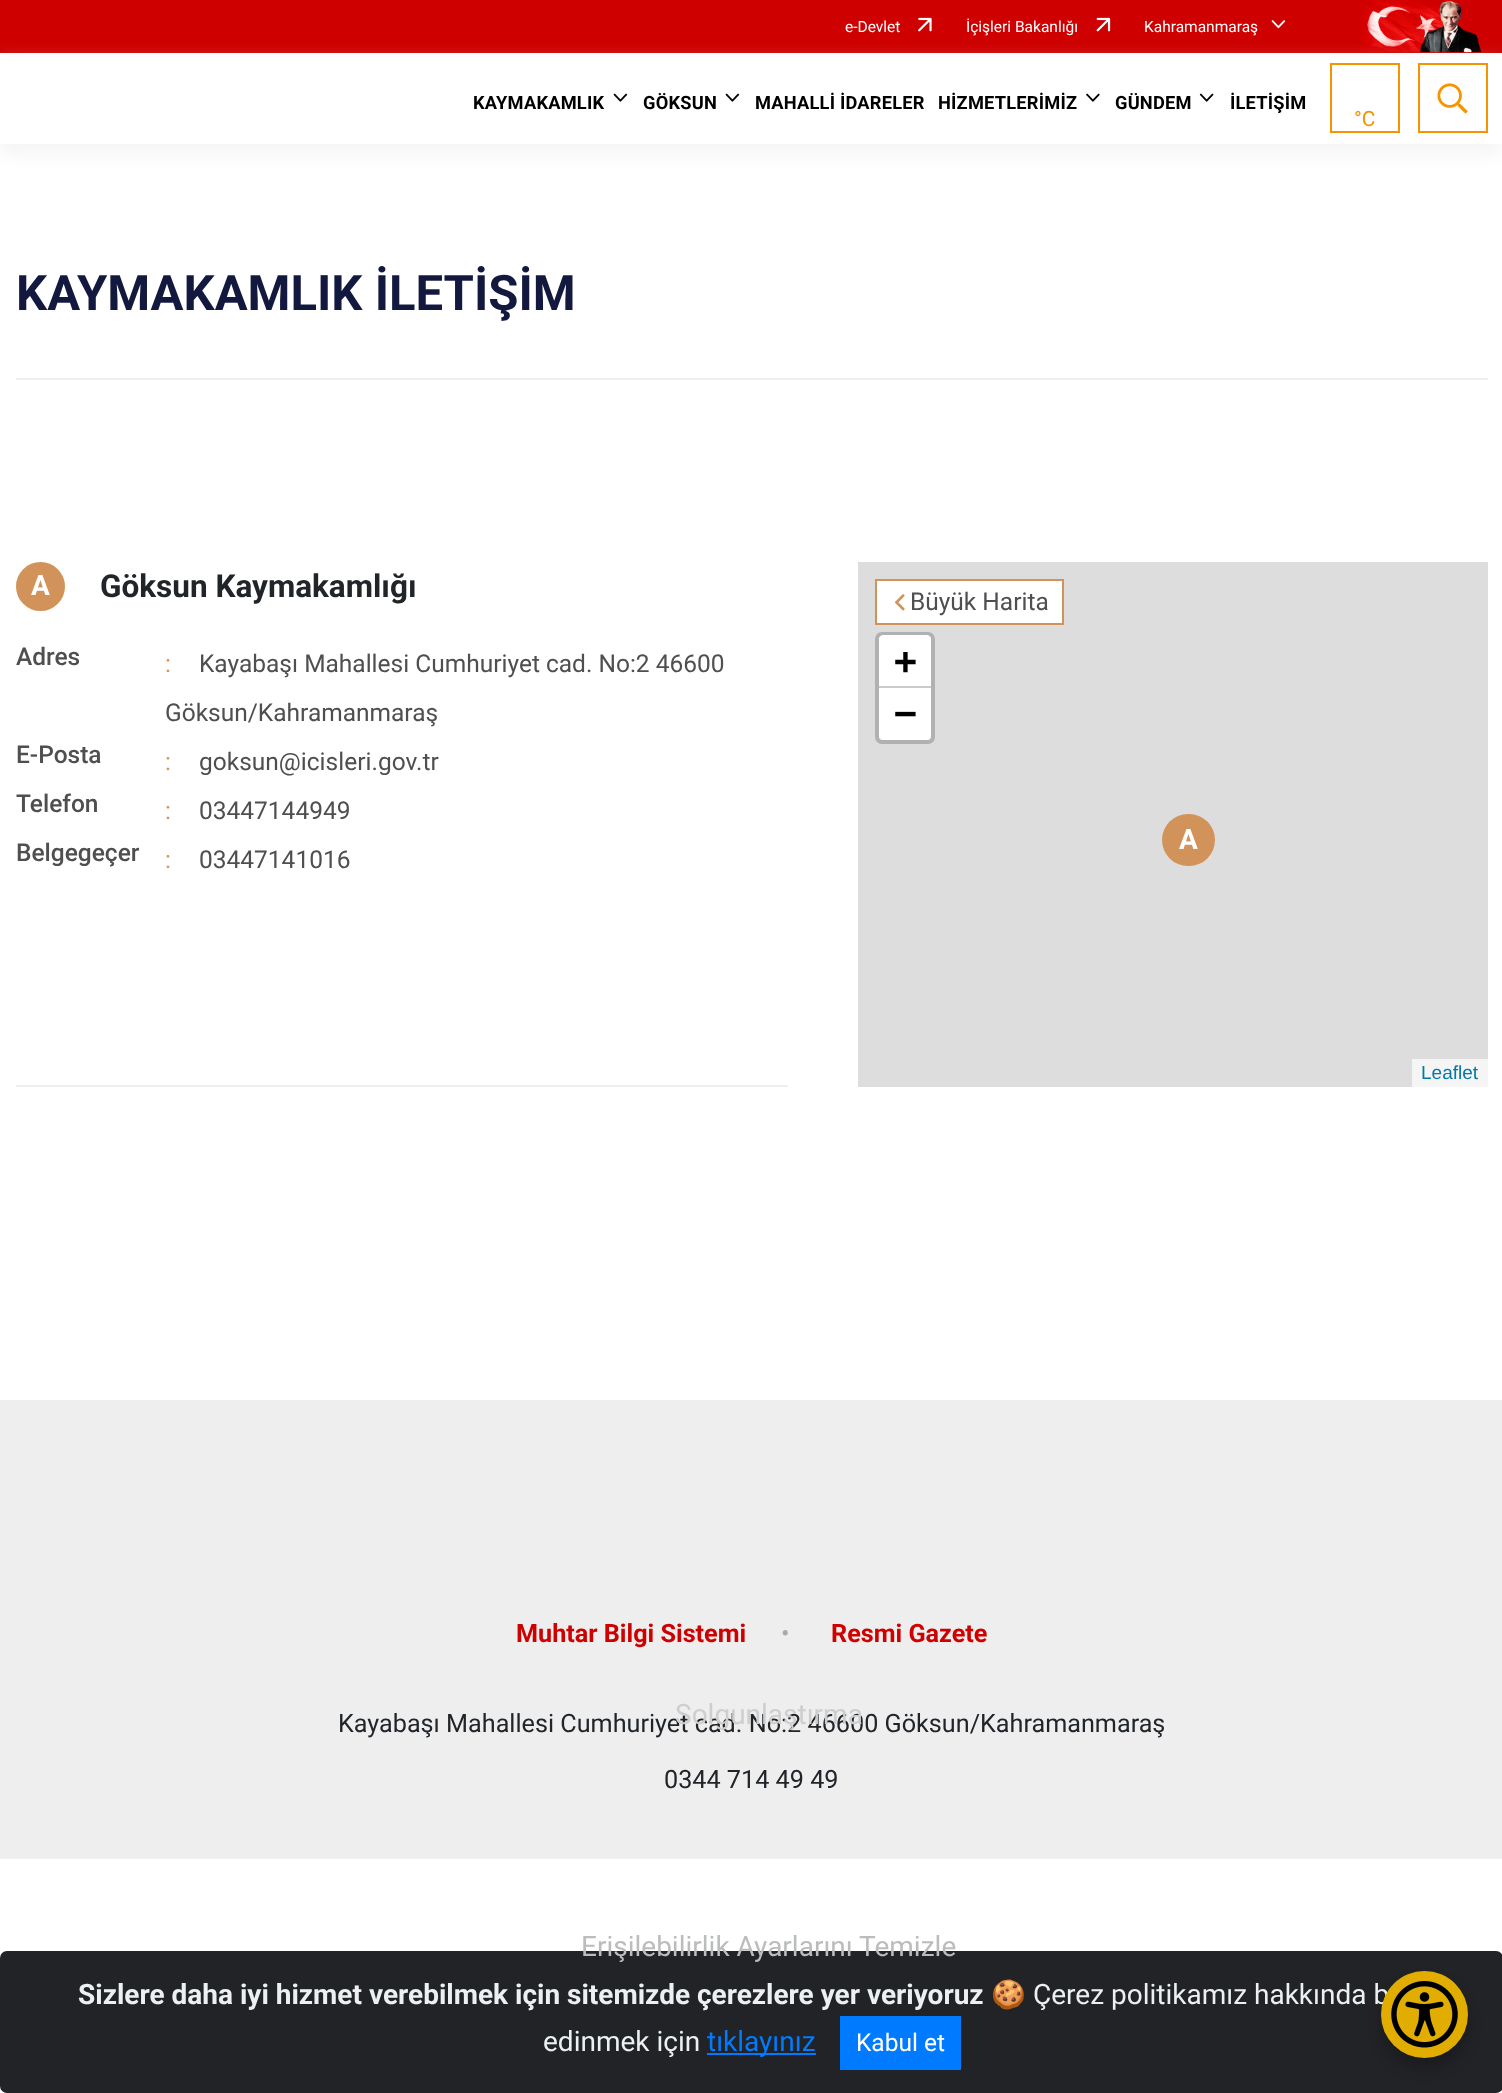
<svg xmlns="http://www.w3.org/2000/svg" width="1502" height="2093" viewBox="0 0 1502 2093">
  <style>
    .t1 { font: 15.5px Roboto; fill: #fff; }
    .t2 { font: bold 18.25px Roboto; letter-spacing: 0.2px; fill: #000; }
    .t3 { font: 21px Roboto; fill: #f59300; }
    .t4 { font: bold 49px Roboto; fill: #13183e; }
    .t5 { font: bold 28px Roboto; fill: #fff; }
    .t6 { font: bold 31.5px Roboto; fill: #212529; }
    .t7 { font: 500 24.5px Roboto; fill: #4f4f4f; }
    .t8 { font: 24.5px Roboto; fill: #d2935b; }
    .t9 { font: 24.5px Roboto; fill: #4f4f4f; }
    .t10 { font: bold 38px DejaVu Sans Mono; fill: #000; }
    .t11 { font: 19px Liberation Sans; fill: #0078a8; }
    .t12 { font: bold 25.2px Roboto; fill: #ce0000; }
    .t13 { font: 25.2px Roboto; fill: #aaa; }
    .t14 { font: 25.2px Roboto; fill: #212529; }
    .t15 { font: 28px Roboto; fill: #cecece; }
    .t16 { font: 28px Roboto; fill: #bbbcbd; }
    .t17 { font: 28px Roboto; fill: #ecf0f1; }
    .t18 { font: bold 28px Roboto; fill: #ecf0f1; }
    .t19 { font: 28px Noto Color Emoji; fill: #ecf0f1; }
    .t20 { font: 28px Roboto; fill: #007bff; }
    .t21 { font: 24.5px Roboto; fill: #fff; }
  </style>
  <rect width="100%" height="100%" fill="#fff"/>
  <rect x="0" y="0" width="1502" height="53" fill="#ce0000"/>
  <text x="845" y="32" class="t1">e-Devlet</text>
  <image x="918" y="17" width="14" height="15" href="images/1.png"/>
  <text x="966" y="32" class="t1">İçişleri Bakanlığı</text>
  <image x="1096" y="17" width="15" height="15" href="images/2.png"/>
  <text x="1144" y="32" class="t1">Kahramanmaraş</text>
  <image x="1271" y="20" width="15" height="9" href="images/3.png"/>
  <image x="1360" y="0" width="122" height="53" href="images/4.png"/>
  <rect x="0" y="63" width="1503" height="91" fill="#eeeeee9e" filter="blur(9px)"/>
  <rect x="0" y="57" width="1502" height="87" fill="#fff"/>
  <text x="473" y="109" class="t2">KAYMAKAMLIK</text>
  <image x="613" y="93" width="15" height="9" href="images/5.png"/>
  <text x="643" y="109" class="t2">GÖKSUN</text>
  <image x="725" y="93" width="15" height="9" href="images/5.png"/>
  <text x="755" y="109" class="t2">MAHALLİ İDARELER</text>
  <text x="938" y="109" class="t2">HİZMETLERİMİZ</text>
  <image x="1086" y="93" width="14" height="9" href="images/6.png"/>
  <text x="1115" y="109" class="t2">GÜNDEM</text>
  <image x="1199" y="93" width="15" height="9" href="images/7.png"/>
  <text x="1230" y="109" class="t2">İLETİŞİM</text>
  <rect x="1331" y="64" width="68" height="68" fill="none" stroke="#f59300" stroke-width="2"/>
  <text x="1354" y="126" class="t3">°C</text>
  <rect x="1419" y="64" width="68" height="68" fill="none" stroke="#f59300" stroke-width="2"/>
  <image x="1437" y="83" width="31" height="31" href="images/8.png"/>
  <rect x="16" y="378" width="1472" height="2" fill="#eee"/>
  <text x="16" y="310" class="t4">KAYMAKAMLIK İLETİŞİM</text>
  <rect x="16" y="1085" width="772" height="2" fill="#eee"/>
  <circle cx="40.5" cy="586.5" r="24.5" fill="#d2935b"/>
  <text x="31" y="595" class="t5">A</text>
  <text x="100" y="597" class="t6">Göksun Kaymakamlığı</text>
  <text x="16" y="665" class="t7">Adres</text>
  <text x="165" y="672" class="t8">:</text>
  <text x="199" y="672" class="t9">Kayabaşı Mahallesi Cumhuriyet cad. No:2 46600</text>
  <text x="165" y="721" class="t9">Göksun/Kahramanmaraş</text>
  <text x="16" y="763" class="t7">E-Posta</text>
  <text x="165" y="770" class="t8">:</text>
  <text x="199" y="770" class="t9">goksun@icisleri.gov.tr</text>
  <text x="16" y="812" class="t7">Telefon</text>
  <text x="165" y="819" class="t8">:</text>
  <text x="199" y="819" class="t9">03447144949</text>
  <text x="16" y="861" class="t7">Belgegeçer</text>
  <text x="165" y="868" class="t8">:</text>
  <text x="199" y="868" class="t9">03447141016</text>
  <rect x="858" y="562" width="630" height="525" fill="#ddd"/>
  <rect x="876" y="580" width="187" height="44" fill="#fff" stroke="#d2935b" stroke-width="2"/>
  <image x="894" y="594" width="11" height="17" href="images/9.png"/>
  <text x="910" y="610" class="t9">Büyük Harita</text>
  <rect x="877" y="634" width="56" height="108" rx="5" fill="none" stroke="#b1b1b1" stroke-width="4"/>
  <path d="M883 635H927C929 635 931 637 931 639V688H879V639C879 637 881 635 883 635Z" fill="#fff"/>
  <rect x="879" y="686" width="52" height="2" fill="#ccc"/>
  <text x="894" y="674" class="t10">+</text>
  <path d="M879 688H931V736C931 738 929 740 927 740H883C881 740 879 738 879 736Z" fill="#fff"/>
  <text x="894" y="726" class="t10">−</text>
  <rect x="1412" y="1059" width="76" height="28" fill="#f5f5f5"/>
  <text x="1421" y="1079" class="t11">Leaflet</text>
  <rect x="1162" y="814" width="53" height="52" rx="26" fill="#d2935b"/>
  <text x="1179" y="849" class="t5">A</text>
  <rect x="0" y="1400" width="1502" height="459" fill="#eee"/>
  <text x="516" y="1642" class="t12">Muhtar Bilgi Sistemi</text>
  <text x="781" y="1642" class="t13">•</text>
  <text x="831" y="1642" class="t12">Resmi Gazete</text>
  <text x="338" y="1732" class="t14">Kayabaşı Mahallesi Cumhuriyet cad. No:2 46600 Göksun/Kahramanmaraş</text>
  <text x="664" y="1788" class="t14">0344 714 49 49</text>
  <text x="675" y="1724" class="t15">Solgunlaştırma</text>
  <rect x="0" y="1951" width="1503" height="142" rx="7" fill="#212327"/>
  <text x="581" y="1956" class="t16">Erişilebilirlik Ayarlarını Temizle</text>
  <rect x="1381" y="1981" width="87" height="88" rx="43.5" fill="#00000033" filter="blur(7px)"/>
  <text x="1033" y="2004" class="t17">Çerez politikamız hakkında b</text>
  <circle cx="1424.5" cy="2014.5" r="43.5" fill="#e1ad01"/>
  <image x="1391" y="1981" width="67" height="67" href="images/10.png"/>
  <text x="78" y="2004" class="t18">Sizlere daha iyi hizmet verebilmek için sitemizde çerezlere yer veriyoruz</text>
  <text x="991" y="2004" class="t19">🍪</text>
  <text x="543" y="2051" class="t17">edinmek için</text>
  <rect x="707" y="2053" width="109" height="2" fill="#007bff"/>
  <text x="707" y="2051" class="t20">tıklayınız</text>
  <rect x="840" y="2016" width="121" height="54" fill="#007bff"/>
  <text x="856" y="2051" class="t21">Kabul et</text>
</svg>
